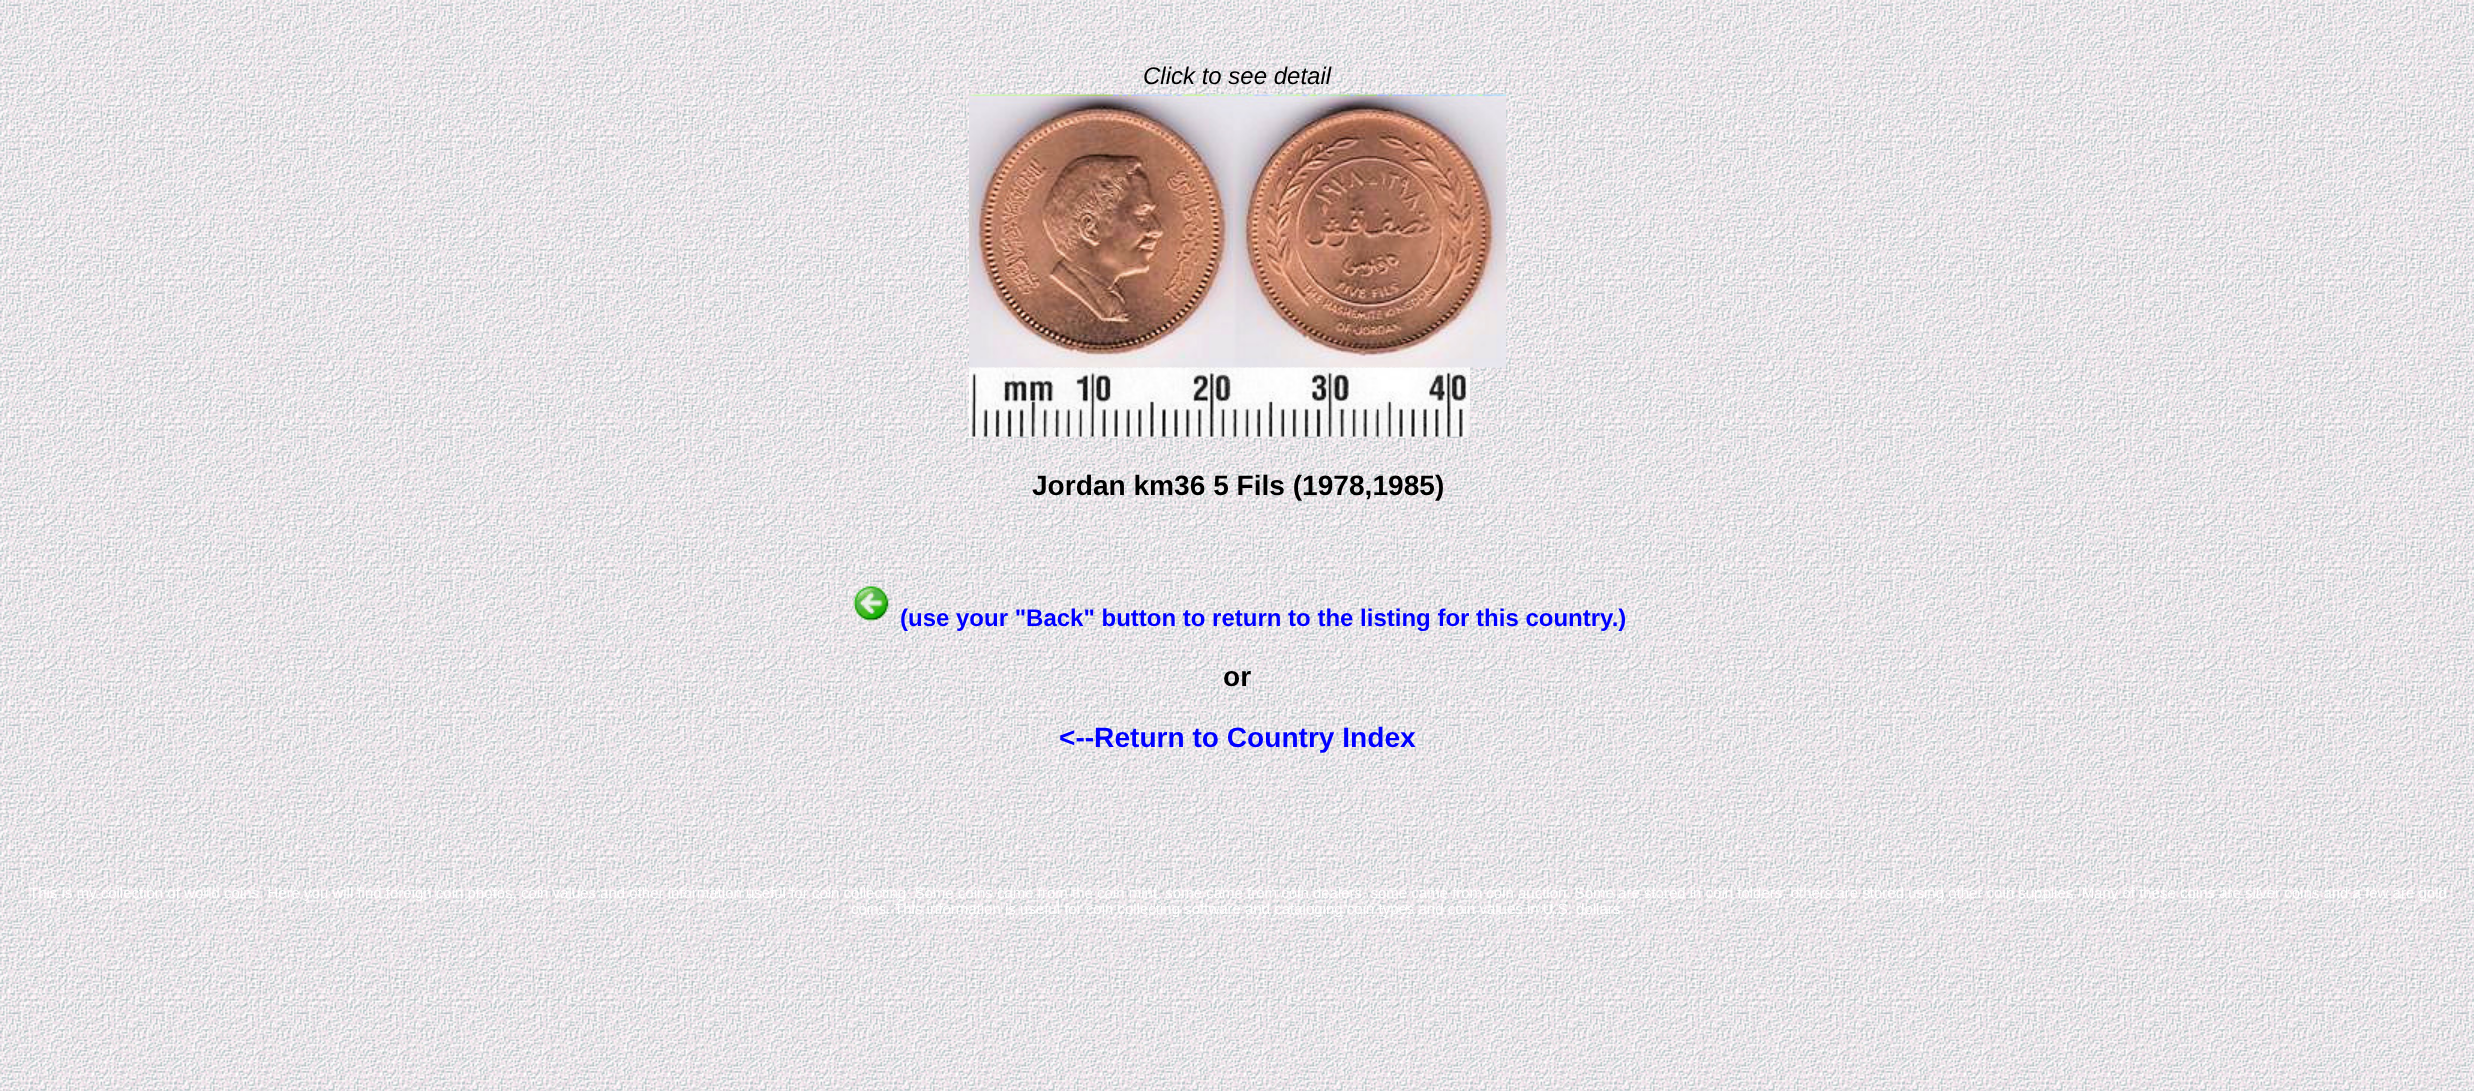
<svg xmlns="http://www.w3.org/2000/svg" width="2474" height="1091" viewBox="0 0 2474 1091">
  <style>
    .t1 { font: italic 24px Liberation Sans; fill: #000; }
    .t2 { font: bold 28.1px Liberation Sans; fill: #000; }
    .t3 { font: bold 24px Liberation Sans; fill: #00f; }
    .t4 { font: bold 28.1px Liberation Sans; fill: #00f; }
    .t5 { font: 15px Liberation Sans; fill: #fff; }
  </style>
  <rect width="100%" height="100%" fill="#fff"/>
  <image x="0" y="0" width="2474" height="1091" href="images/1.png"/>
  <text x="1143" y="84" class="t1">Click to see detail</text>
  <image x="969" y="94" width="537" height="274" href="images/2.png"/>
  <image x="969" y="367" width="501" height="70" href="images/3.png"/>
  <text x="1032" y="495" class="t2">Jordan km36 5 Fils (1978,1985)</text>
  <image x="853" y="586" width="36" height="36" href="images/4.png"/>
  <text x="900" y="626" class="t3">(use your "Back" button to return to the listing for this country.)</text>
  <text x="1223" y="686" class="t2">or</text>
  <text x="1059" y="747" class="t4">&lt;--Return to Country Index</text>
  <text x="29" y="898" class="t5">This is my collection of world coins. Here you will find foreign coin photos, coin values and other information useful for coin collecting. Some coins came from the coin mint, some came from coin dealers, some came from coin auction. Some are stored in coin folders, others are stored using other coin supplies. Many of these coins are silver coins and a few are gold</text>
  <text x="851" y="914" class="t5">coins. This information is useful for coin collecting software and cataloging coin types and coin values in U.S. dollars.</text>
</svg>
